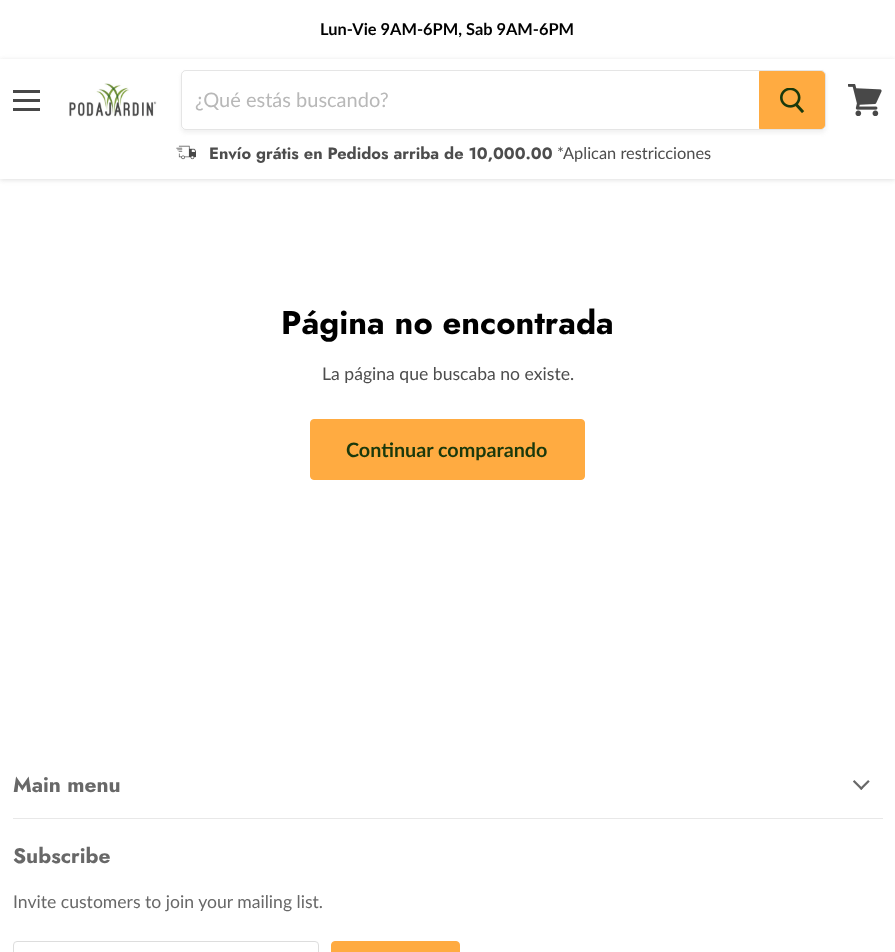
<svg xmlns="http://www.w3.org/2000/svg" width="895" height="952" viewBox="0 0 895 952">
  <style>
    .t1 { font: bold 16.4px Lato; fill: #000; }
    .t2 { font: 20px Lato; fill: #b8b8b8; }
    .t3 { font: bold 16.4px Jost; fill: #4d4d4d; }
    .t4 { font: 16.4px Lato; fill: #4d4d4d; }
    .t5 { font: bold 32.75px Jost; fill: #000; }
    .t6 { font: 17.6px Lato; fill: #4d4d4d; }
    .t7 { font: bold 19.75px Lato; fill: #1a390c; }
    .t8 { font: bold 21px Jost; fill: #686868; }
    .t9 { font: 17.6px Lato; fill: #686868; }
  </style>
  <defs>
    <clipPath id="clip1"><path d="M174 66H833V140H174ZM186 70H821C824 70 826 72 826 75V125C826 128 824 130 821 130H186C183 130 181 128 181 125V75C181 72 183 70 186 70Z" clip-rule="evenodd"/></clipPath>
  </defs>
  <rect width="100%" height="100%" fill="#fff"/>
  <text x="320" y="35" class="t1">Lun-Vie 9AM-6PM, Sab 9AM-6PM</text>
  <rect x="0" y="60" width="895" height="120" fill="#7f7f7f40" filter="blur(2.5px)"/>
  <rect x="0" y="59" width="895" height="120" fill="#fff"/>
  <rect x="13" y="90" width="27" height="3" fill="#484848"/>
  <rect x="13" y="99" width="27" height="3" fill="#484848"/>
  <rect x="13" y="108" width="27" height="3" fill="#484848"/>
  <image x="69" y="83" width="88" height="34" href="images/1.png"/>
  <g clip-path="url(#clip1)">
    <rect x="181" y="73" width="645" height="60" rx="5" fill="#7f7f7f1c" filter="blur(2px)"/>
  </g>
  <rect x="181.5" y="70.5" width="644" height="59" rx="4.5" fill="none" stroke="#7f7f7f33"/>
  <text x="195" y="107" class="t2">¿Qué estás buscando?</text>
  <path d="M759.5 71.5H821C823 71.5 824.5 73 824.5 75V125C824.5 127 823 128.5 821 128.5H759.5Z" fill="#ffab41" stroke="#ffab41"/>
  <image x="780" y="88" width="25" height="25" href="images/2.png"/>
  <image x="176" y="145" width="20" height="15" href="images/3.png"/>
  <text x="209" y="159" class="t3">Envío grátis en Pedidos arriba de 10,000.00</text>
  <text x="557" y="159" class="t4">*Aplican restricciones</text>
  <image x="848" y="84" width="34" height="32" href="images/4.png"/>
  <text x="281" y="334" class="t5">Página no encontrada</text>
  <text x="322" y="380" class="t6">La página que buscaba no existe.</text>
  <rect x="310.5" y="419.5" width="274" height="60" rx="3.5" fill="#ffab41" stroke="#ffab41"/>
  <text x="346" y="457" class="t7">Continuar comparando</text>
  <rect x="13" y="818" width="870" height="1" fill="#e8e8e8"/>
  <text x="13" y="792" class="t8">Main menu</text>
  <image x="853" y="780" width="17" height="10" href="images/5.png"/>
  <text x="13" y="863" class="t8">Subscribe</text>
  <text x="13" y="908" class="t9">Invite customers to join your mailing list.</text>
  <rect x="13.5" y="941.5" width="305" height="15" rx="3.5" fill="none" stroke="#ddd"/>
  <rect x="331.5" y="941.5" width="128" height="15" rx="3.5" fill="#ffab41" stroke="#ffab41"/>
</svg>
